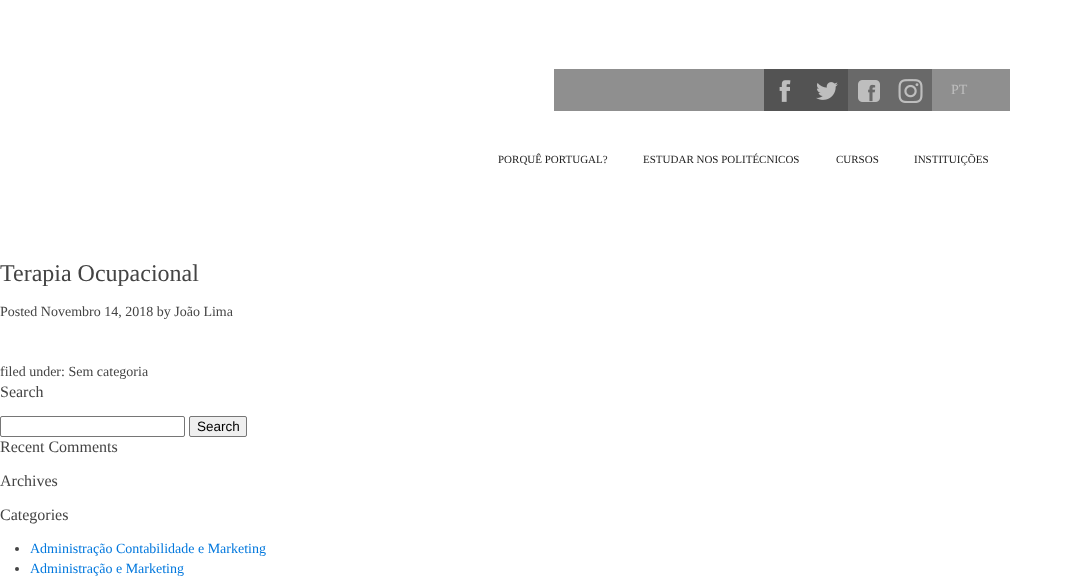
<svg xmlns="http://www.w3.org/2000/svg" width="1069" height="580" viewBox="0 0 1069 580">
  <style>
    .t1 { font: 14px Liberation Serif; fill: #bebebe; }
    .t2 { font: 11px Liberation Serif; fill: #222; }
    .t3 { font: 24px Liberation Serif; fill: #444; }
    .t4 { font: 14px Liberation Serif; fill: #444; }
    .t5 { font: 16px Liberation Serif; fill: #444; }
    .t6 { font: 13.5px Liberation Sans; fill: #000; }
    .t7 { font: 14px Liberation Serif; fill: #07d; }
  </style>
  <rect width="100%" height="100%" fill="#fff"/>
  <rect x="554" y="69" width="210" height="42" fill="#8f8f8f"/>
  <rect x="764" y="69" width="84" height="42" fill="#535353"/>
  <image x="779" y="80" width="12" height="22" href="images/1.png"/>
  <rect x="848" y="69" width="84" height="42" fill="#696969"/>
  <image x="858" y="80" width="22" height="22" href="images/2.png"/>
  <image x="816" y="82" width="22" height="18" href="images/3.png"/>
  <image x="898" y="79" width="25" height="24" href="images/4.png"/>
  <rect x="932" y="69" width="78" height="42" fill="#8f8f8f"/>
  <text x="951" y="94" class="t1">PT</text>
  <text x="498" y="163" class="t2">PORQUÊ PORTUGAL?</text>
  <text x="643" y="163" class="t2">ESTUDAR NOS POLITÉCNICOS</text>
  <text x="836" y="163" class="t2">CURSOS</text>
  <text x="914" y="163" class="t2">INSTITUIÇÕES</text>
  <text x="0" y="281" class="t3">Terapia Ocupacional</text>
  <text x="0" y="316" class="t4">Posted Novembro 14, 2018 by João Lima</text>
  <text x="0" y="376" class="t4">filed under: Sem categoria</text>
  <text x="0" y="397" class="t5">Search</text>
  <rect x="0.5" y="416.5" width="184" height="20" rx="1.5" fill="none" stroke="#767676"/>
  <rect x="189.5" y="416.5" width="57" height="20" rx="1.5" fill="#efefef" stroke="#767676"/>
  <text x="197" y="431" class="t6">Search</text>
  <text x="0" y="452" class="t5">Recent Comments</text>
  <text x="0" y="486" class="t5">Archives</text>
  <text x="0" y="520" class="t5">Categories</text>
  <circle cx="17" cy="549" r="2" fill="#444"/>
  <text x="30" y="553" class="t7">Administração Contabilidade e Marketing</text>
  <circle cx="17" cy="569" r="2" fill="#444"/>
  <text x="30" y="573" class="t7">Administração e Marketing</text>
</svg>
